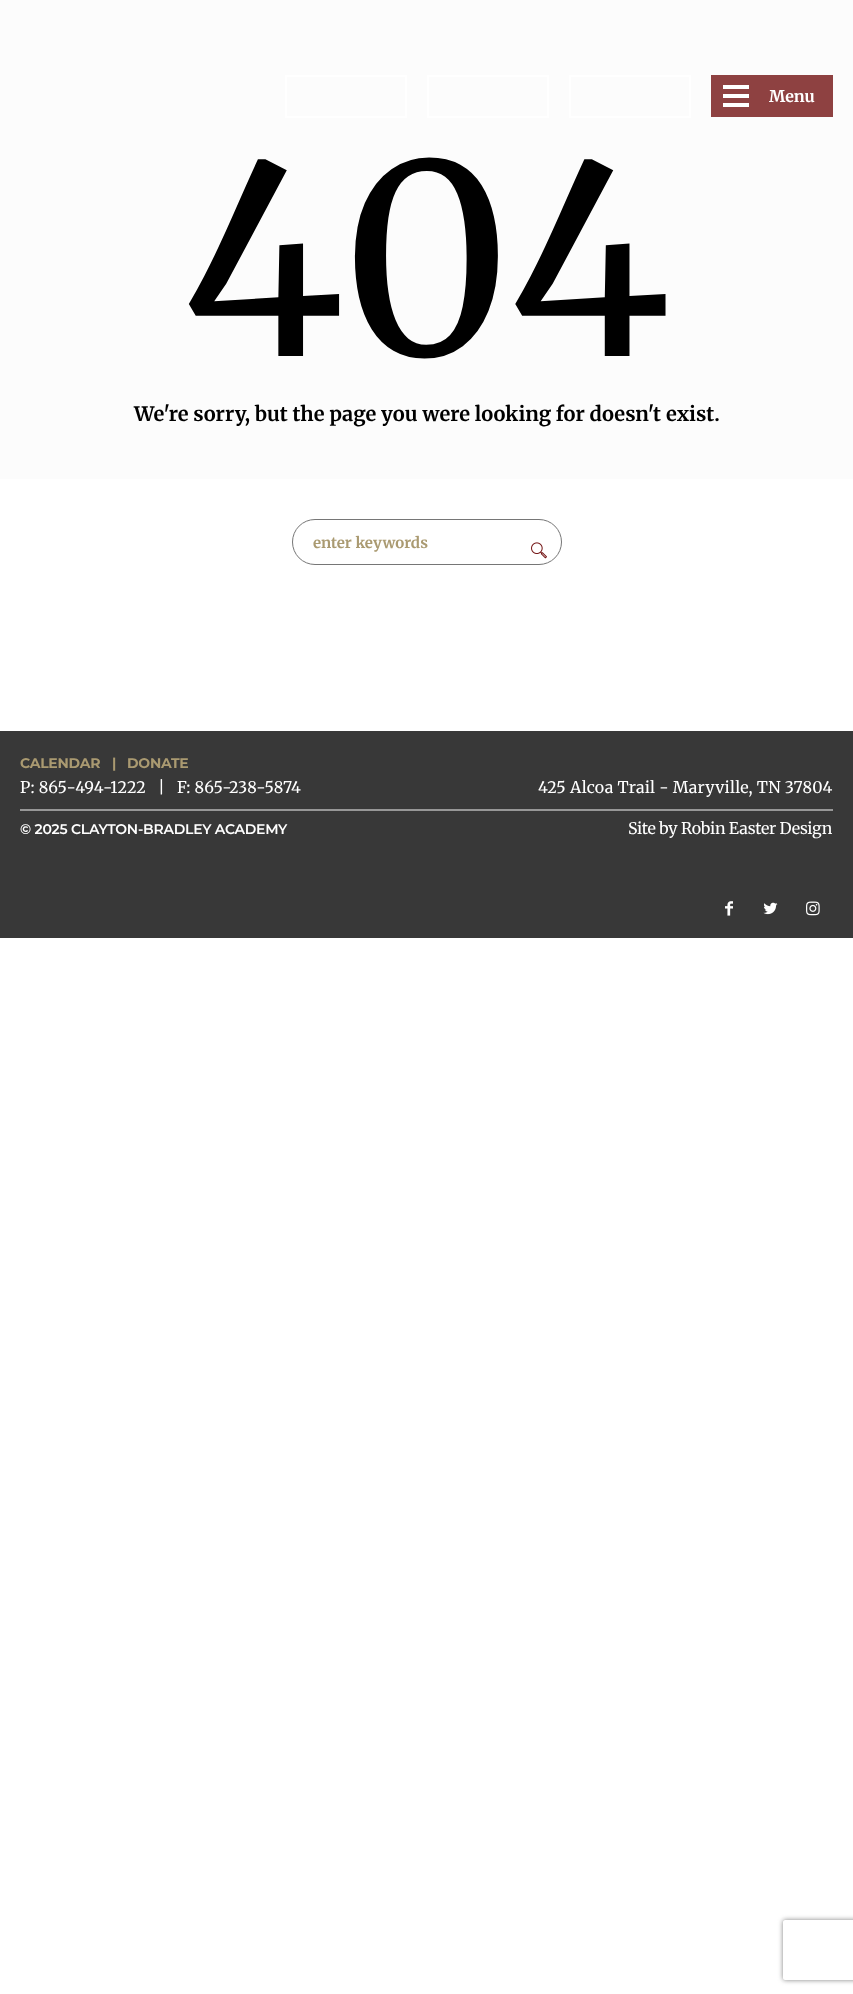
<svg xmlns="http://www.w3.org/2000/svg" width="853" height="1994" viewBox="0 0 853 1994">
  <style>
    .t1 { font: bold 16px Merriweather; fill: #fff; }
    .t2 { font: 264px Merriweather; fill: #000; }
    .t3 { font: bold 20px Merriweather; fill: #000; }
    .t4 { font: bold 15px Merriweather; fill: #aa9a71; }
    .t5 { font: bold 14px Montserrat; letter-spacing: -0.25px; fill: #aa9a71; }
    .t6 { font: 16px Merriweather; letter-spacing: 0.2px; fill: #fff; }
    .t7 { font: 600 14px Montserrat; letter-spacing: -0.25px; fill: #fff; }
    .t8 { font: 16px Merriweather; letter-spacing: -0.25px; fill: #fff; }
  </style>
  <defs>
    <clipPath id="clip1"><path d="M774 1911H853V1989H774ZM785 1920H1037C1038 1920 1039 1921 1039 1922V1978C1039 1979 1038 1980 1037 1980H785C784 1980 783 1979 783 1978V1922C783 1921 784 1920 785 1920Z" clip-rule="evenodd"/></clipPath>
  </defs>
  <rect width="100%" height="100%" fill="#fff"/>
  <rect x="0" y="0" width="853" height="479" fill="#fcfcfc"/>
  <rect x="286" y="76" width="120" height="41" fill="none" stroke="#fff" stroke-width="2"/>
  <rect x="428" y="76" width="120" height="41" fill="none" stroke="#fff" stroke-width="2"/>
  <rect x="570" y="76" width="120" height="41" fill="none" stroke="#fff" stroke-width="2"/>
  <rect x="711" y="75" width="122" height="42" fill="#8e4141"/>
  <rect x="723" y="85" width="26" height="4" fill="#fff"/>
  <rect x="723" y="94" width="26" height="4" fill="#fff"/>
  <text x="769" y="102" class="t1">Menu</text>
  <rect x="723" y="103" width="26" height="4" fill="#fff"/>
  <text x="182" y="356" class="t2">404</text>
  <text x="134" y="421" class="t3">We're sorry, but the page you were looking for doesn't exist.</text>
  <rect x="292.5" y="519.5" width="269" height="45" rx="22.5" fill="none" stroke="#767676"/>
  <text x="313" y="548" class="t4">enter keywords</text>
  <image x="531" y="542" width="16" height="17" href="images/1.png"/>
  <rect x="0" y="731" width="853" height="207" fill="#383838"/>
  <text x="20" y="768" class="t5">CALENDAR</text>
  <text x="112" y="768" class="t5">|</text>
  <text x="127" y="768" class="t5">DONATE</text>
  <rect x="20" y="809" width="813" height="2" fill="#979797"/>
  <text x="20" y="793" class="t6" xml:space="preserve">P: 865-494-1222   |   F: 865-238-5874</text>
  <text x="538" y="793" class="t6">425 Alcoa Trail - Maryville, TN 37804</text>
  <text x="20" y="834" class="t7">© 2025 CLAYTON-BRADLEY ACADEMY</text>
  <text x="628" y="834" class="t8">Site by Robin Easter Design</text>
  <image x="725" y="901" width="8" height="15" href="images/2.png"/>
  <image x="763" y="902" width="15" height="13" href="images/3.png"/>
  <image x="806" y="901" width="14" height="15" href="images/4.png"/>
  <g clip-path="url(#clip1)">
    <rect x="783" y="1920" width="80" height="60" rx="2" fill="#808080" filter="blur(2.5px)"/>
  </g>
</svg>
